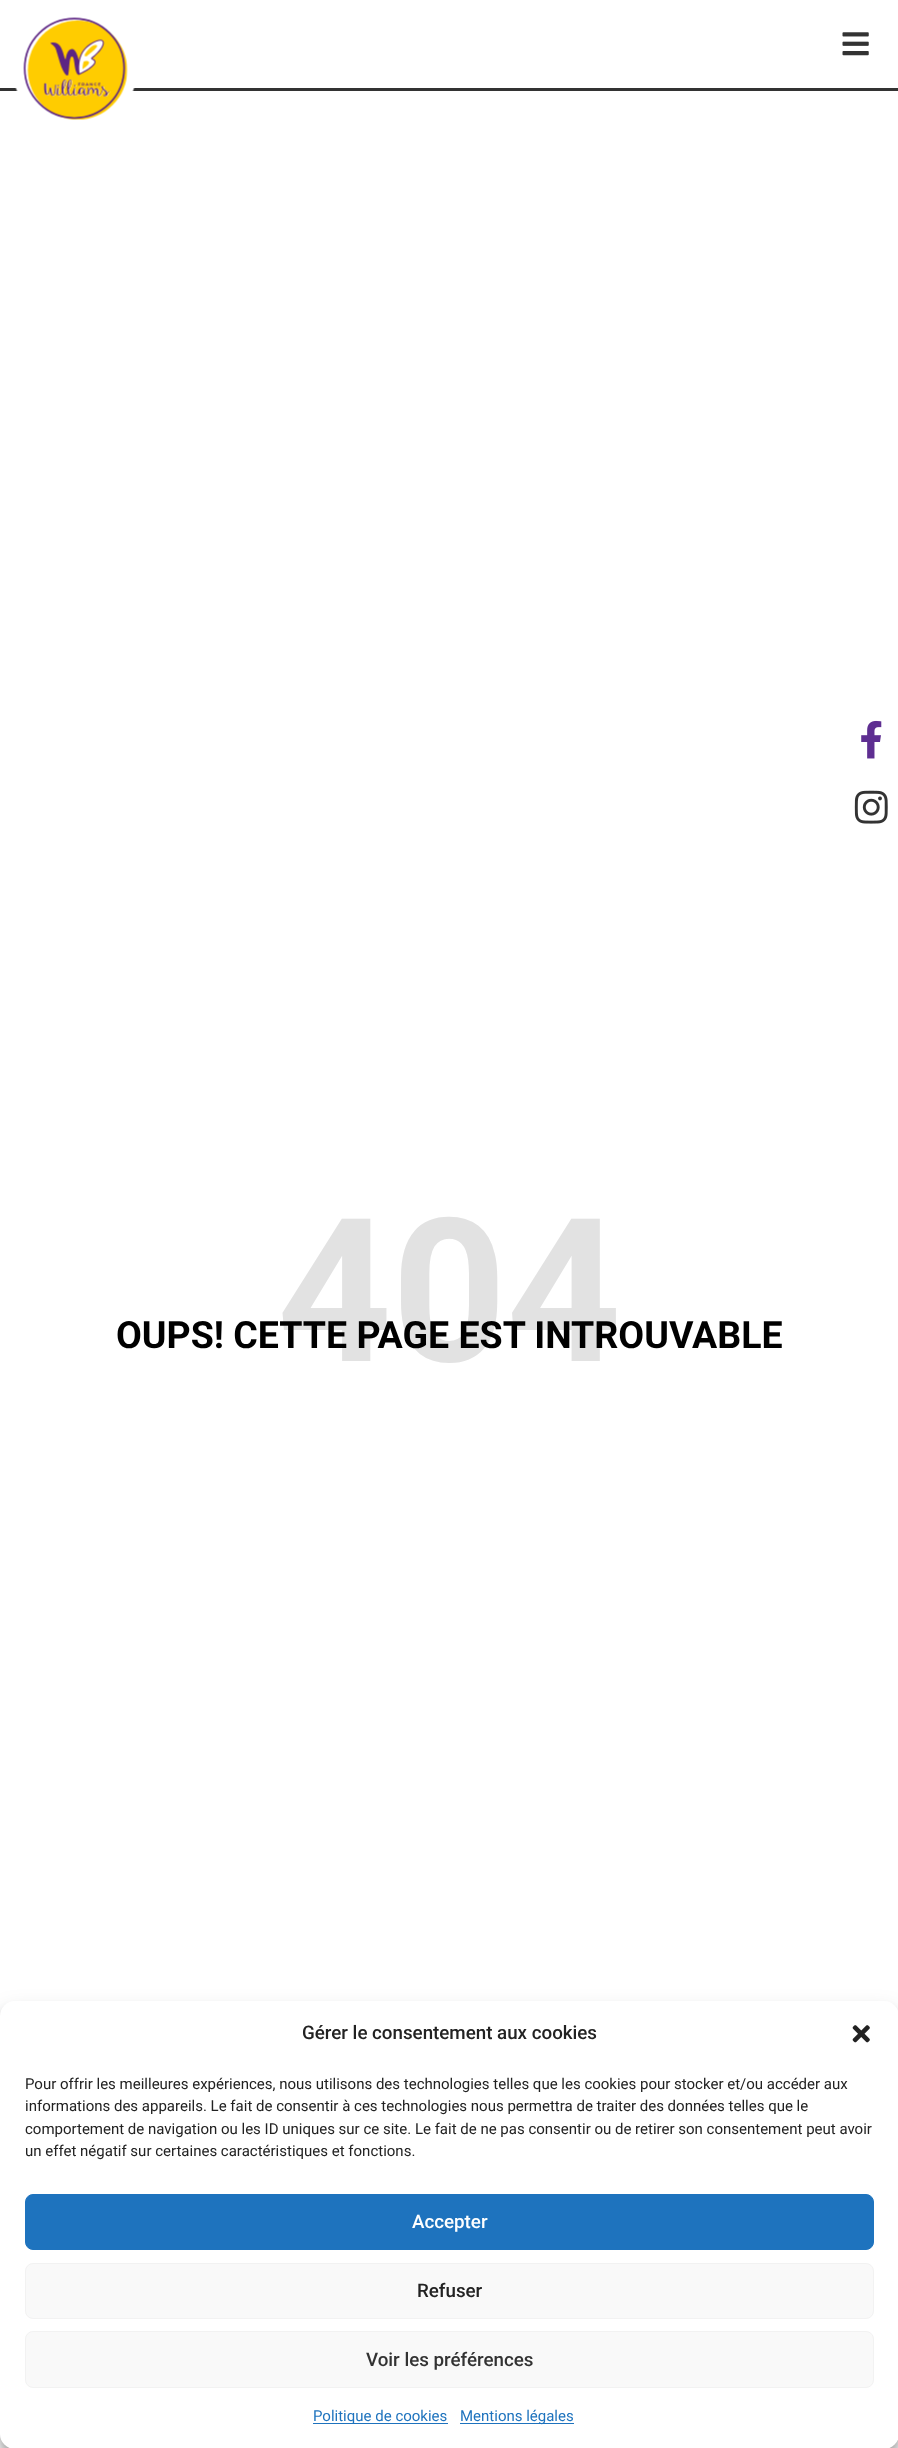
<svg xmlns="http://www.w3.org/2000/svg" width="898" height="2448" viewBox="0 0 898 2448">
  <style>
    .t1 { font: bold 200px Roboto; fill: #e2e2e2; }
    .t2 { font: bold 37.5px Roboto; fill: #000; }
    .t3 { font: 500 18.75px Roboto; fill: #222; }
    .t4 { font: 15px Roboto; fill: #222; }
    .t5 { font: 500 18.75px Roboto; fill: #fff; }
    .t6 { font: 500 18.75px Roboto; fill: #333; }
    .t7 { font: 15px Roboto; fill: #1e73be; }
  </style>
  <rect width="100%" height="100%" fill="#fff"/>
  <rect x="0" y="88" width="898" height="3" fill="#333"/>
  <image x="15" y="17" width="120" height="103" href="images/1.png"/>
  <image x="842" y="32" width="27" height="24" href="images/2.png"/>
  <image x="861" y="720" width="21" height="39" href="images/3.png"/>
  <image x="854" y="790" width="34" height="34" href="images/4.png"/>
  <text x="277" y="1361" class="t1">404</text>
  <text x="116" y="1348" class="t2">OUPS! CETTE PAGE EST INTROUVABLE</text>
  <rect x="0" y="2009" width="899" height="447" rx="15" fill="#0000003b" filter="blur(4px)"/>
  <rect x="0" y="2014" width="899" height="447" rx="15" fill="#00000030" filter="blur(12.5px)"/>
  <rect x="0" y="2001" width="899" height="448" rx="15" fill="#fff"/>
  <text x="302" y="2039" class="t3">Gérer le consentement aux cookies</text>
  <image x="852" y="2025" width="18" height="18" href="images/5.png"/>
  <text x="25" y="2089" class="t4">Pour offrir les meilleures expériences, nous utilisons des technologies telles que les cookies pour stocker et/ou accéder aux</text>
  <text x="25" y="2111" class="t4">informations des appareils. Le fait de consentir à ces technologies nous permettra de traiter des données telles que le</text>
  <text x="25" y="2134" class="t4">comportement de navigation ou les ID uniques sur ce site. Le fait de ne pas consentir ou de retirer son consentement peut avoir</text>
  <text x="25" y="2156" class="t4">un effet négatif sur certaines caractéristiques et fonctions.</text>
  <rect x="25.5" y="2194.5" width="848" height="55" rx="7.5" fill="#1e73be" stroke="#1e73be"/>
  <text x="412" y="2228" class="t5">Accepter</text>
  <rect x="25.5" y="2263.5" width="848" height="55" rx="7.5" fill="#f9f9f9" stroke="#f2f2f2"/>
  <text x="417" y="2297" class="t3">Refuser</text>
  <rect x="25.5" y="2331.5" width="848" height="56" rx="7.5" fill="#f9f9f9" stroke="#f2f2f2"/>
  <text x="366" y="2366" class="t6">Voir les préférences</text>
  <rect x="313" y="2423" width="135" height="1" fill="#1e73be"/>
  <text x="313" y="2421" class="t7">Politique de cookies</text>
  <rect x="460" y="2423" width="114" height="1" fill="#1e73be"/>
  <text x="460" y="2421" class="t7">Mentions légales</text>
</svg>
